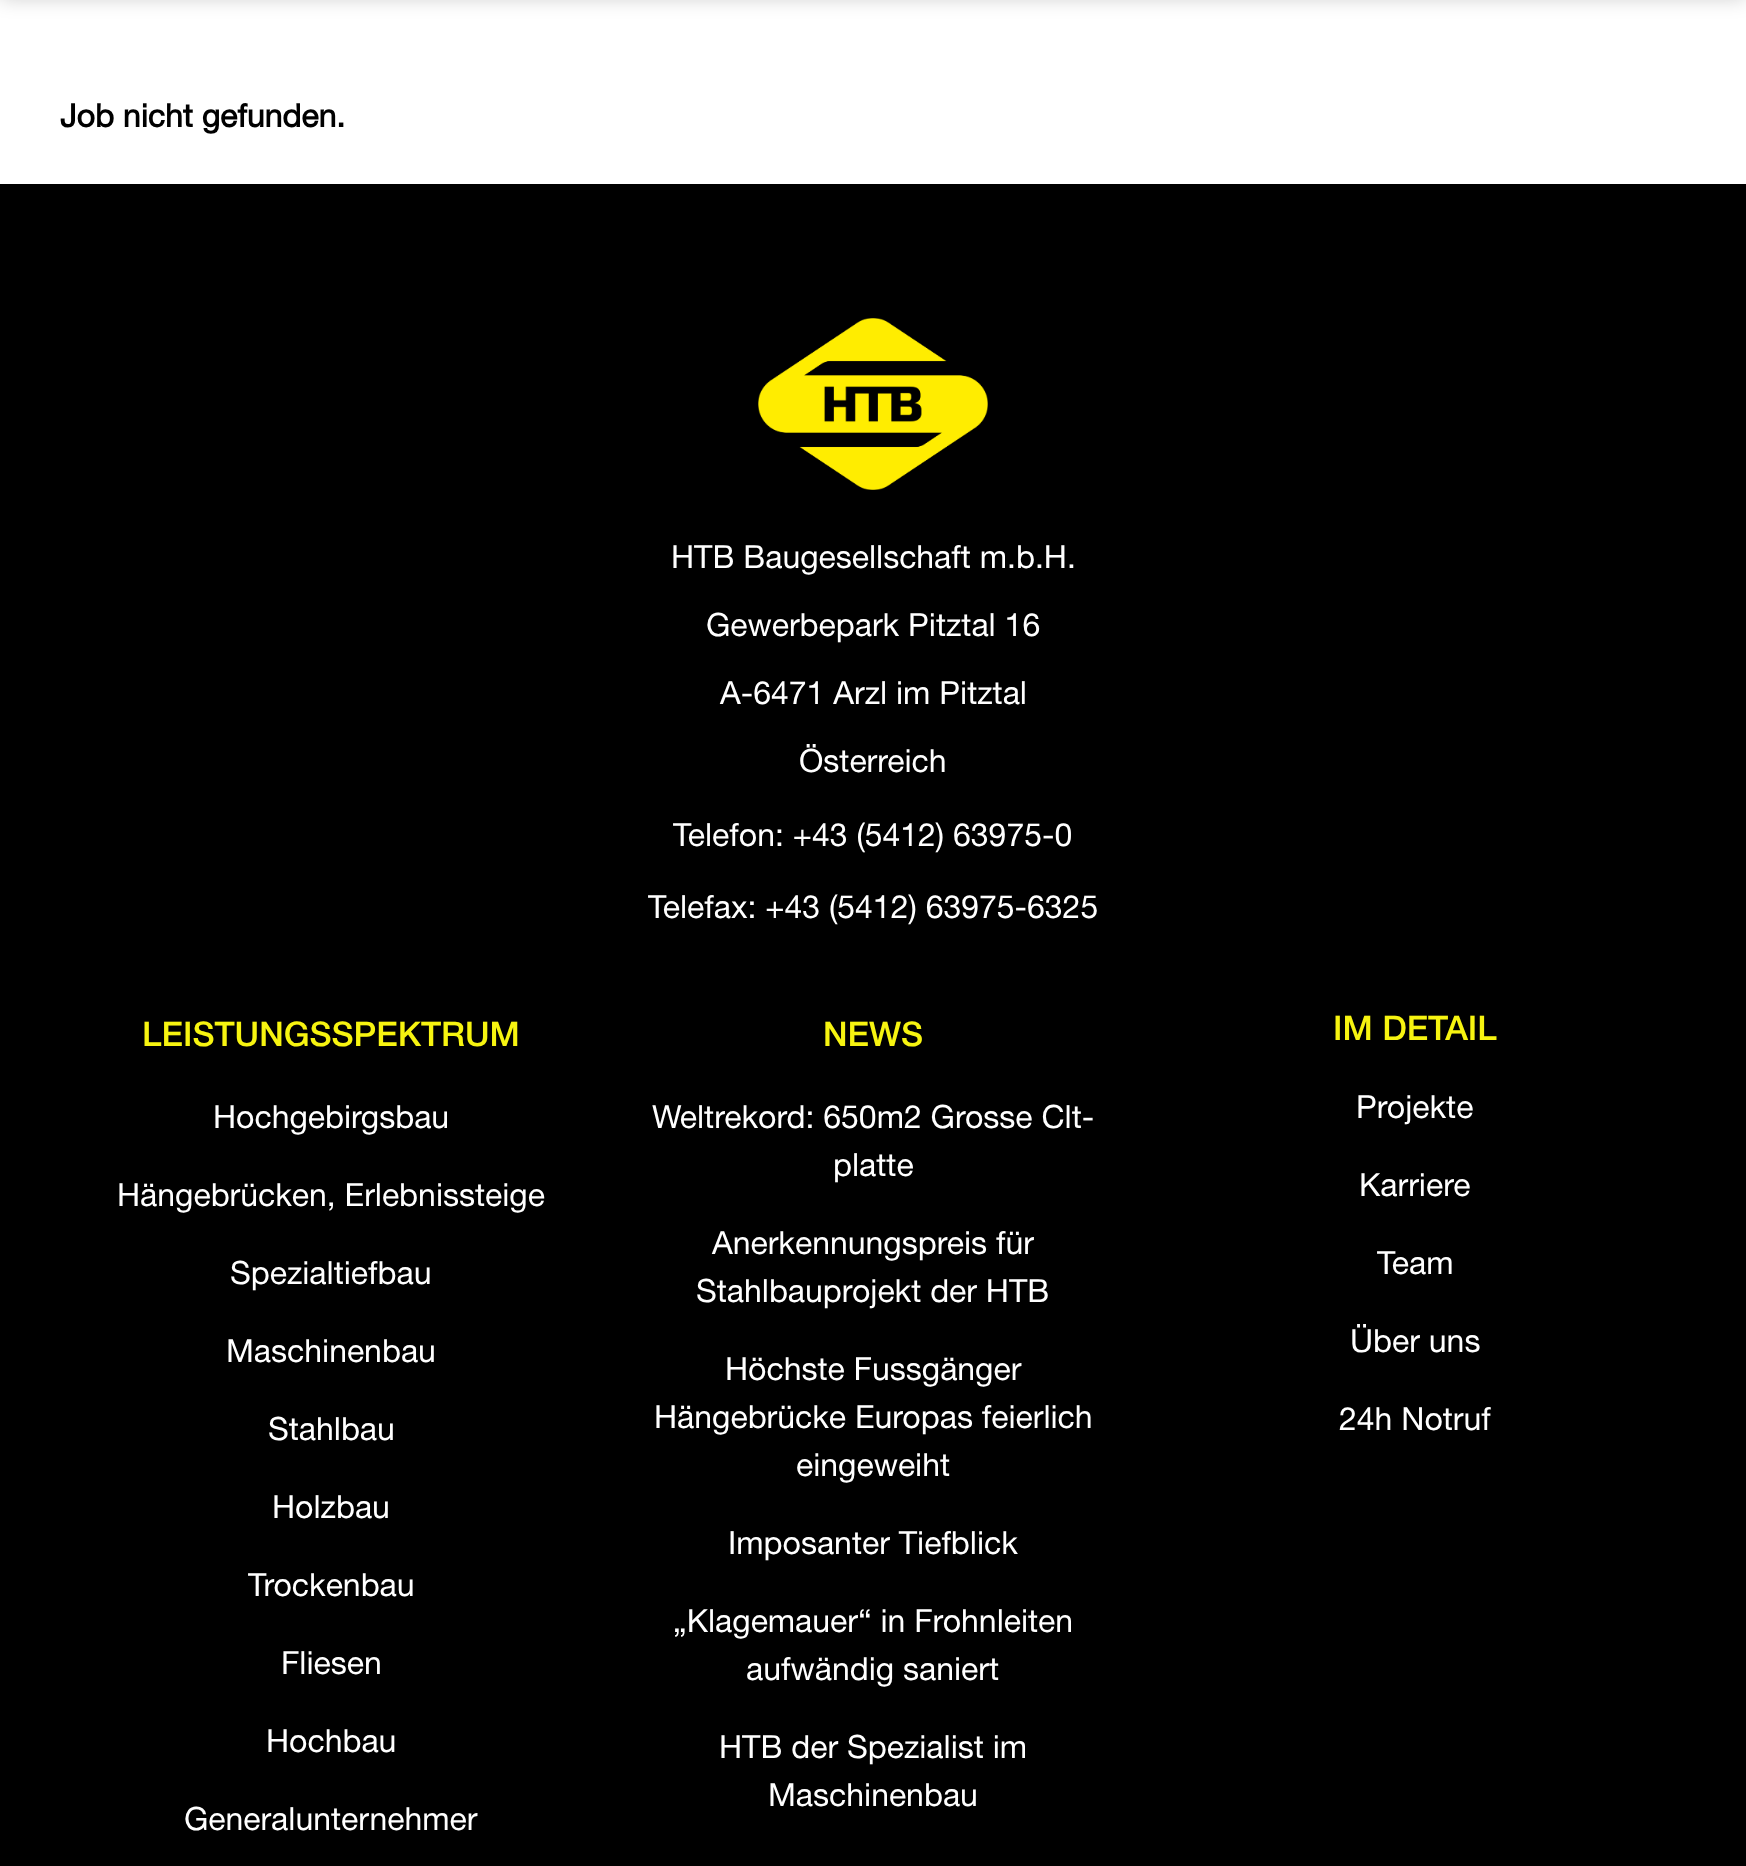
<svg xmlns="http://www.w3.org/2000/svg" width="1746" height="1866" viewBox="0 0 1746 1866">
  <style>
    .t1 { font: bold 32px Helvetica Neue; fill: #000; }
    .t2 { font: 32px Helvetica Neue; fill: #fff; }
    .t3 { font: 34px 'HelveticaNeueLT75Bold'; fill: #f7f410; }
  </style>
  <rect width="100%" height="100%" fill="#fff"/>
  <rect x="0" y="-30" width="1746" height="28" fill="#00000033" filter="blur(10px)"/>
  <text x="60" y="127" class="t1">Job nicht gefunden.</text>
  <rect x="0" y="184" width="1746" height="1682" fill="#000"/>
  <image x="758" y="318" width="230" height="172" href="images/1.png"/>
  <text x="671" y="568" class="t2">HTB Baugesellschaft m.b.H.</text>
  <text x="706" y="636" class="t2">Gewerbepark Pitztal 16</text>
  <text x="720" y="704" class="t2">A-6471 Arzl im Pitztal</text>
  <text x="799" y="772" class="t2">Österreich</text>
  <text x="673" y="846" class="t2">Telefon: +43 (5412) 63975-0</text>
  <text x="648" y="918" class="t2">Telefax: +43 (5412) 63975-6325</text>
  <text x="142" y="1046" class="t3">LEISTUNGSSPEKTRUM</text>
  <text x="213" y="1128" class="t2">Hochgebirgsbau</text>
  <text x="117" y="1206" class="t2">Hängebrücken, Erlebnissteige</text>
  <text x="230" y="1284" class="t2">Spezialtiefbau</text>
  <text x="226" y="1362" class="t2">Maschinenbau</text>
  <text x="268" y="1440" class="t2">Stahlbau</text>
  <text x="272" y="1518" class="t2">Holzbau</text>
  <text x="248" y="1596" class="t2">Trockenbau</text>
  <text x="281" y="1674" class="t2">Fliesen</text>
  <text x="266" y="1752" class="t2">Hochbau</text>
  <text x="184" y="1830" class="t2">Generalunternehmer</text>
  <text x="823" y="1046" class="t3">NEWS</text>
  <text x="652" y="1128" class="t2">Weltrekord: 650m2 Grosse Clt-</text>
  <text x="833" y="1176" class="t2">platte</text>
  <text x="712" y="1254" class="t2">Anerkennungspreis für</text>
  <text x="696" y="1302" class="t2">Stahlbauprojekt der HTB</text>
  <text x="725" y="1380" class="t2">Höchste Fussgänger</text>
  <text x="654" y="1428" class="t2">Hängebrücke Europas feierlich</text>
  <text x="796" y="1476" class="t2">eingeweiht</text>
  <text x="728" y="1554" class="t2">Imposanter Tiefblick</text>
  <text x="673" y="1632" class="t2">„Klagemauer“ in Frohnleiten</text>
  <text x="746" y="1680" class="t2">aufwändig saniert</text>
  <text x="719" y="1758" class="t2">HTB der Spezialist im</text>
  <text x="768" y="1806" class="t2">Maschinenbau</text>
  <text x="1333" y="1040" class="t3">IM DETAIL</text>
  <text x="1356" y="1118" class="t2">Projekte</text>
  <text x="1359" y="1196" class="t2">Karriere</text>
  <text x="1377" y="1274" class="t2">Team</text>
  <text x="1350" y="1352" class="t2">Über uns</text>
  <text x="1339" y="1430" class="t2">24h Notruf</text>
</svg>
